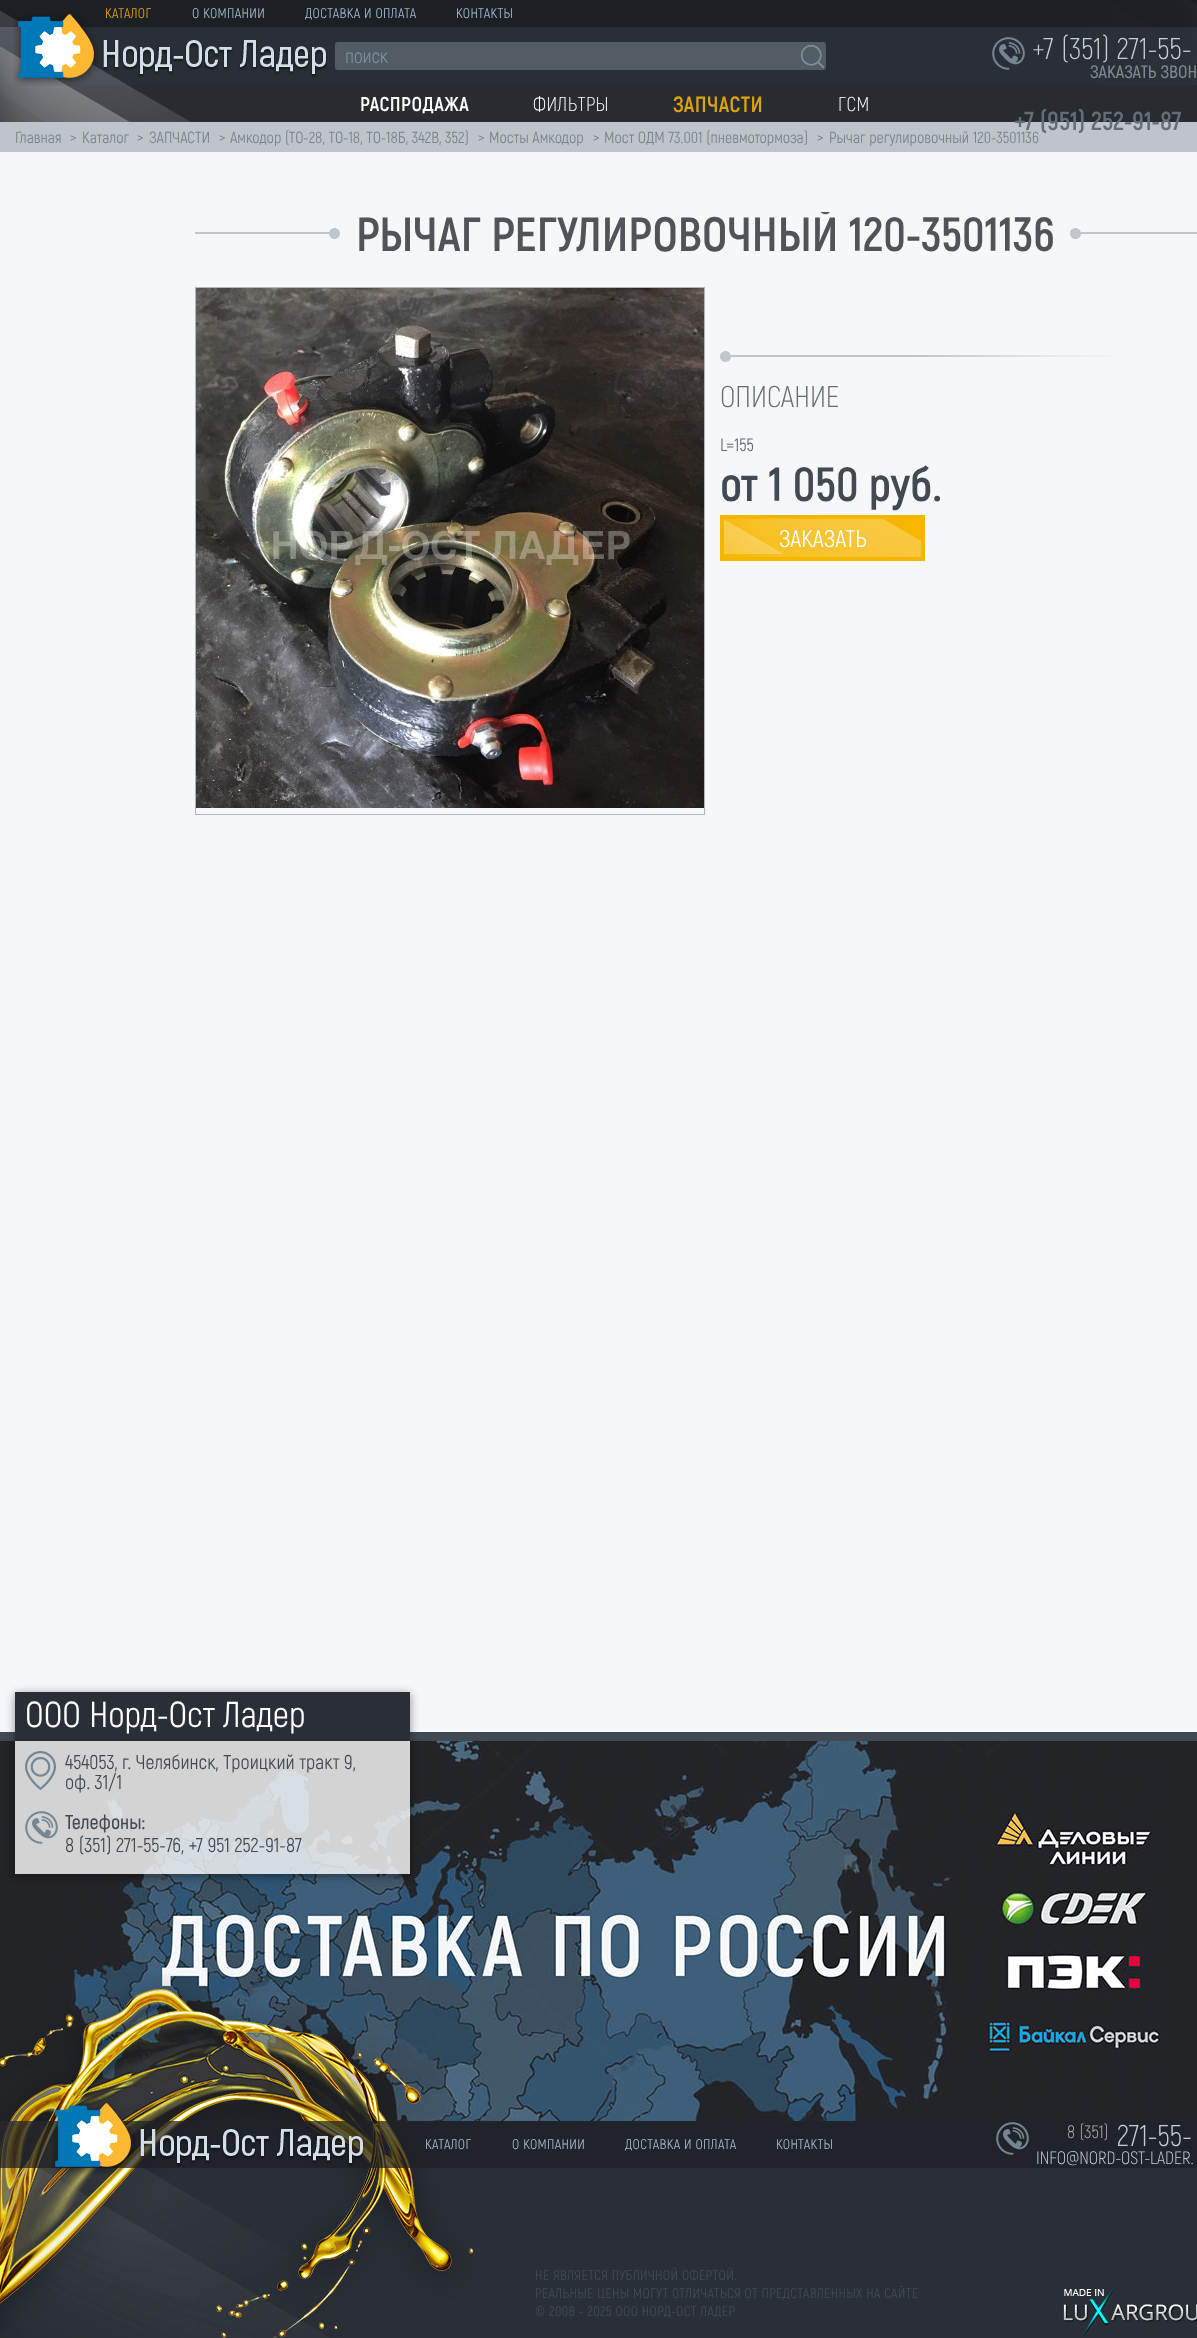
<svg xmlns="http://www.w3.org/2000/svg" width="1197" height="2338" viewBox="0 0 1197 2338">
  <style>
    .t1 { font: 14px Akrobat; letter-spacing: 0.35px; fill: #dca30d; }
    .t2 { font: 14px Akrobat; letter-spacing: 0.35px; fill: #a0b9cc; }
    .t3 { font: 20px Akrobat; letter-spacing: -0.25px; fill: #7a8d9b; }
    .t4 { font: 300 30px Akrobat; fill: #c6cfd6; }
    .t5 { font: 600 18px Akrobat; fill: #7e8892; }
    .t6 { font: bold 26px Akrobat; fill: #656d74; }
    .t7 { font: bold 20px Akrobat; letter-spacing: 0.5px; fill: #fff; }
    .t8 { font: 300 20px Akrobat; letter-spacing: 0.5px; fill: #fff; }
    .t9 { font: bold 22px Akrobat; letter-spacing: 0.5px; fill: #dca30d; }
    .t10 { font: 16px Akrobat; fill: #7a828d; }
    .t11 { font: bold 48px Akrobat; fill: #515359; }
    .t12 { font: 300 30px Akrobat; fill: #656d74; }
    .t13 { font: 18px Akrobat; fill: #656d74; }
    .t14 { font: bold 48px Akrobat; fill: #414a52; }
    .t15 { font: 24px Akrobat; fill: #fff; }
    .t16 { font: 36px Akrobat; fill: #fff; }
    .t17 { font: 20px Akrobat; fill: #414a52; }
    .t18 { font: 600 20px Akrobat; fill: #414a52; }
    .t19 { font: 300 18px Akrobat; fill: #b7b7b7; }
    .t20 { font: 300 18px Akrobat; fill: #c6cfd6; }
    .t21 { font: 14px Akrobat; letter-spacing: 0.35px; fill: #414a52; }
  </style>
  <defs>
    <clipPath id="clip1"><rect x="195" y="212" width="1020" height="40"/></clipPath>
    <clipPath id="clip2"><path d="M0 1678H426V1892H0ZM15 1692H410V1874H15Z" clip-rule="evenodd"/></clipPath>
  </defs>
  <rect width="100%" height="100%" fill="#f5f7f9"/>
  <image x="0" y="0" width="1197" height="122" href="images/1.png"/>
  <image x="13" y="14" width="314" height="72" href="images/2.png"/>
  <text x="105" y="18" class="t1">КАТАЛОГ</text>
  <text x="192" y="18" class="t2">О КОМПАНИИ</text>
  <text x="305" y="18" class="t2">ДОСТАВКА И ОПЛАТА</text>
  <text x="456" y="18" class="t2">КОНТАКТЫ</text>
  <rect x="335" y="42" width="491" height="28" rx="3" fill="#515c64"/>
  <text x="345" y="63" class="t3">поиск</text>
  <image x="801" y="45" width="23" height="23" href="images/3.png"/>
  <image x="801" y="45" width="23" height="23" href="images/4.png"/>
  <image x="992" y="37" width="33" height="33" href="images/5.png"/>
  <text x="1032" y="59" class="t4">+7 (351) 271-55-</text>
  <text x="1090" y="78" class="t5">ЗАКАЗАТЬ ЗВОН</text>
  <rect x="0" y="122" width="1197" height="30" fill="#bec4ca"/>
  <text x="1014" y="130" class="t6">+7 (951) 252-91-87</text>
  <text x="360" y="111" class="t7">РАСПРОДАЖА</text>
  <text x="533" y="111" class="t8">ФИЛЬТРЫ</text>
  <text x="673" y="112" class="t9">ЗАПЧАСТИ</text>
  <text x="838" y="111" class="t8">ГСМ</text>
  <text x="15" y="143" class="t10">Главная</text>
  <text x="70" y="143" class="t10">&gt;</text>
  <text x="82" y="143" class="t10">Каталог</text>
  <text x="137" y="143" class="t10">&gt;</text>
  <text x="149" y="143" class="t10">ЗАПЧАСТИ</text>
  <text x="219" y="143" class="t10">&gt;</text>
  <text x="230" y="143" class="t10">Амкодор (ТО-28, ТО-18, ТО-18Б, 342В, 352)</text>
  <text x="478" y="143" class="t10">&gt;</text>
  <text x="489" y="143" class="t10">Мосты Амкодор</text>
  <text x="593" y="143" class="t10">&gt;</text>
  <text x="604" y="143" class="t10">Мост ОДМ 73.001 (пневмотормоза)</text>
  <text x="817" y="143" class="t10">&gt;</text>
  <text x="829" y="143" class="t10">Рычаг регулировочный 120-3501136</text>
  <image x="195" y="228" width="145" height="11" href="images/6.png"/>
  <g clip-path="url(#clip1)">
    <text x="356" y="251" class="t11">РЫЧАГ РЕГУЛИРОВОЧНЫЙ 120-3501136</text>
  </g>
  <image x="1070" y="228" width="127" height="11" href="images/7.png"/>
  <rect x="195.5" y="287.5" width="509" height="527" fill="none" stroke="#b1b5ba"/>
  <image x="196" y="288" width="508" height="520" href="images/8.png"/>
  <image x="720" y="351" width="394" height="11" href="images/9.png"/>
  <text x="720" y="407" class="t12">ОПИСАНИЕ</text>
  <text x="720" y="451" class="t13">L=155</text>
  <text x="720" y="501" class="t14">от 1 050 руб.</text>
  <rect x="720" y="515" width="205" height="46" fill="#f6b600"/>
  <image x="724" y="519" width="197" height="38" href="images/10.png"/>
  <image x="724" y="519" width="60" height="35" href="images/11.png"/>
  <text x="779" y="547" class="t15">ЗАКАЗАТЬ</text>
  <rect x="0" y="1732" width="1197" height="9" fill="#414a52"/>
  <rect x="0" y="1741" width="1197" height="380" fill="#232428"/>
  <image x="68" y="1741" width="1095" height="380" href="images/14.png"/>
  <g clip-path="url(#clip2)">
    <rect x="15" y="1694" width="395" height="182" fill="#00000070" filter="blur(5px)"/>
  </g>
  <rect x="15" y="1741" width="395" height="133" fill="#ffffffcc"/>
  <rect x="15" y="1692" width="395" height="49" fill="#2a2f37"/>
  <text x="25" y="1727" class="t16">ООО Норд-Ост Ладер</text>
  <image x="25" y="1751" width="31" height="39" href="images/12.png"/>
  <text x="65" y="1769" class="t17">454053, г. Челябинск, Троицкий тракт 9,</text>
  <text x="65" y="1789" class="t17">оф. 31/1</text>
  <image x="25" y="1811" width="33" height="33" href="images/13.png"/>
  <text x="65" y="1829" class="t18">Телефоны:</text>
  <text x="65" y="1852" class="t17">8 (351) 271-55-76, +7 951 252-91-87</text>
  <rect x="0" y="2121" width="1197" height="217" fill="#2a2f37"/>
  <image x="0" y="1974" width="473" height="364" href="images/15.png"/>
  <image x="0" y="2121" width="329" height="217" href="images/16.png"/>
  <rect x="0" y="2121" width="1197" height="47" fill="#1d1f24b8"/>
  <image x="49" y="2100" width="316" height="76" href="images/17.png"/>
  <text x="425" y="2149" class="t2">КАТАЛОГ</text>
  <text x="512" y="2149" class="t2">О КОМПАНИИ</text>
  <text x="625" y="2149" class="t2">ДОСТАВКА И ОПЛАТА</text>
  <text x="776" y="2149" class="t2">КОНТАКТЫ</text>
  <image x="996" y="2122" width="33" height="33" href="images/18.png"/>
  <text x="1067" y="2138" class="t19">8 (351)</text>
  <text x="1117" y="2146" class="t4">271-55-</text>
  <text x="1036" y="2164" class="t20">INFO@NORD-OST-LADER.</text>
  <text x="535" y="2280" class="t21">НЕ ЯВЛЯЕТСЯ ПУБЛИЧНОЙ ОФЕРТОЙ.</text>
  <text x="535" y="2298" class="t21">РЕАЛЬНЫЕ ЦЕНЫ МОГУТ ОТЛИЧАТЬСЯ ОТ ПРЕДСТАВЛЕННЫХ НА САЙТЕ</text>
  <text x="535" y="2316" class="t21">© 2008 - 2025 ООО НОРД-ОСТ ЛАДЕР</text>
  <image x="1063" y="2287" width="134" height="50" href="images/19.png"/>
</svg>
